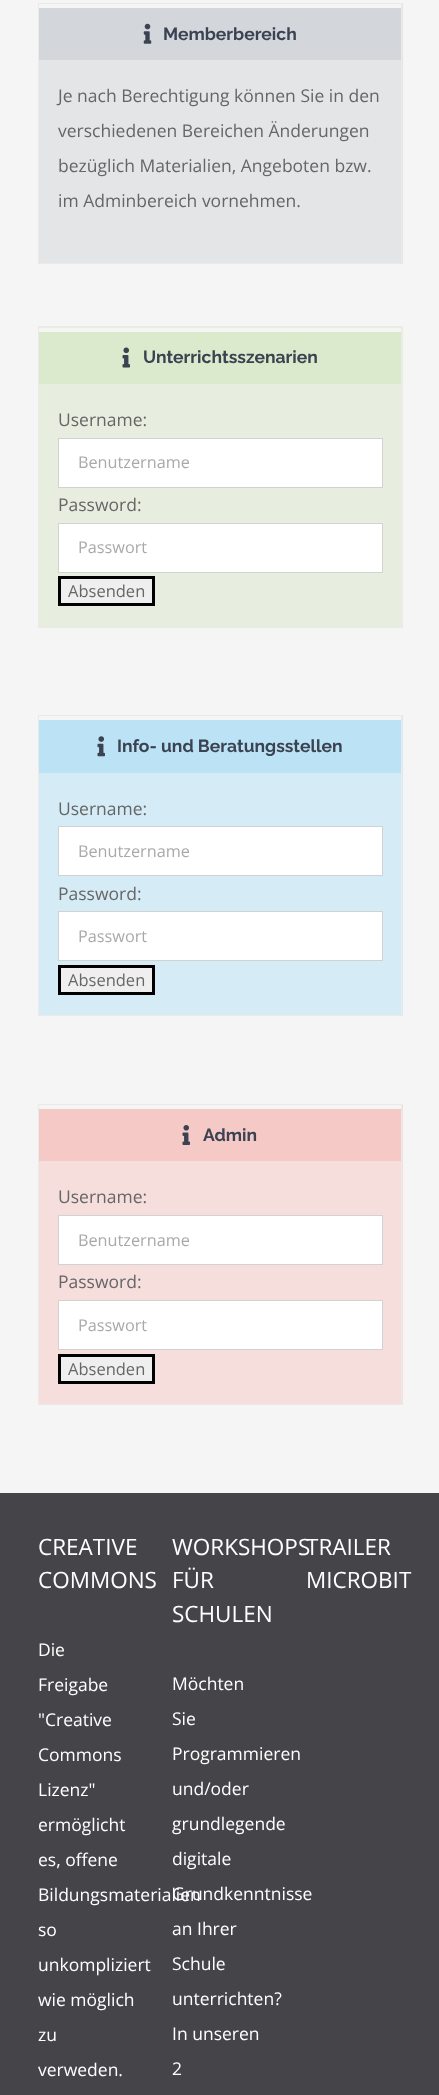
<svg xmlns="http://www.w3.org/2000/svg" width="439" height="2095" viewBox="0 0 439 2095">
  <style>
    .t1 { font: 100 17.5px Raleway; fill: #3b4251; }
    .t2 { font: 17.5px Open Sans; fill: #666; }
    .t3 { font: 16.25px Open Sans; fill: #aaa9a9; }
    .t4 { font: 16.5px Open Sans; fill: #666; }
    .t5 { font: 22.5px Open Sans; fill: #fff; }
    .t6 { font: 17.5px Open Sans; fill: #fff; }
  </style>
  <rect width="100%" height="100%" fill="#f5f5f5"/>
  <rect x="402" y="4" width="1" height="56" fill="#e3e5e7"/>
  <rect x="38" y="3" width="365" height="1" fill="#ebeaea"/>
  <rect x="401" y="3" width="1" height="57" fill="#ebeaea"/>
  <rect x="38" y="3" width="1" height="57" fill="#ebeaea"/>
  <rect x="39" y="8" width="362" height="52" fill="#d3d7db"/>
  <image x="143" y="23" width="9" height="21" href="images/1.png"/>
  <text x="163" y="40" class="t1">Memberbereich</text>
  <rect x="39" y="60" width="364" height="203" fill="#e3e5e7"/>
  <rect x="401" y="60" width="1" height="204" fill="#ebeaea"/>
  <rect x="38" y="263" width="365" height="1" fill="#ebeaea"/>
  <rect x="38" y="60" width="1" height="204" fill="#ebeaea"/>
  <text x="58" y="102" class="t2">Je nach Berechtigung können Sie in den</text>
  <text x="58" y="137" class="t2">verschiedenen Bereichen Änderungen</text>
  <text x="58" y="172" class="t2">bezüglich Materialien, Angeboten bzw.</text>
  <text x="58" y="207" class="t2">im Adminbereich vornehmen.</text>
  <rect x="39" y="327" width="364" height="57" fill="#e7efdf"/>
  <rect x="38" y="326" width="365" height="1" fill="#ebeaea"/>
  <rect x="401" y="326" width="1" height="58" fill="#ebeaea"/>
  <rect x="38" y="326" width="1" height="58" fill="#ebeaea"/>
  <rect x="39" y="332" width="362" height="52" fill="#dbe9cc"/>
  <rect x="39" y="328" width="362" height="4" fill="#f5f5f5"/>
  <image x="122" y="347" width="8" height="21" href="images/2.png"/>
  <text x="143" y="363" class="t1">Unterrichtsszenarien</text>
  <rect x="39" y="384" width="364" height="244" fill="#e7eedf"/>
  <rect x="401" y="384" width="1" height="244" fill="#ebeaea"/>
  <rect x="38" y="626" width="365" height="1" fill="#ebeaea"/>
  <rect x="38" y="384" width="1" height="244" fill="#ebeaea"/>
  <text x="58" y="426" class="t2">Username:</text>
  <rect x="58.5" y="438.5" width="324" height="49" fill="#fff" stroke="#d2d2d2"/>
  <text x="78" y="468" class="t3">Benutzername</text>
  <text x="58" y="511" class="t2">Password:</text>
  <rect x="58.5" y="523.5" width="324" height="49" fill="#fff" stroke="#d2d2d2"/>
  <text x="78" y="553" class="t3">Passwort</text>
  <rect x="59.5" y="577.5" width="94" height="27" fill="#efefef" stroke="#000" stroke-width="3"/>
  <text x="68" y="597" class="t4">Absenden</text>
  <rect x="402" y="716" width="1" height="57" fill="#d6ebf5"/>
  <rect x="38" y="715" width="365" height="1" fill="#ebeaea"/>
  <rect x="401" y="715" width="1" height="58" fill="#ebeaea"/>
  <rect x="38" y="715" width="1" height="58" fill="#ebeaea"/>
  <rect x="39" y="720" width="362" height="53" fill="#bbe2f5"/>
  <image x="97" y="736" width="8" height="21" href="images/3.png"/>
  <text x="117" y="752" class="t1">Info- und Beratungsstellen</text>
  <rect x="39" y="773" width="364" height="242" fill="#d5ebf5"/>
  <rect x="401" y="773" width="1" height="243" fill="#ebeaea"/>
  <rect x="38" y="1015" width="365" height="1" fill="#ebeaea"/>
  <rect x="38" y="773" width="1" height="243" fill="#ebeaea"/>
  <text x="58" y="815" class="t2">Username:</text>
  <rect x="58.5" y="826.5" width="324" height="49" fill="#fff" stroke="#d2d2d2"/>
  <text x="78" y="857" class="t3">Benutzername</text>
  <text x="58" y="900" class="t2">Password:</text>
  <rect x="58.5" y="911.5" width="324" height="49" fill="#fff" stroke="#d2d2d2"/>
  <text x="78" y="942" class="t3">Passwort</text>
  <rect x="59.5" y="966.5" width="94" height="27" fill="#efefef" stroke="#000" stroke-width="3"/>
  <text x="68" y="986" class="t4">Absenden</text>
  <rect x="402" y="1105" width="1" height="56" fill="#f5dedc"/>
  <rect x="38" y="1104" width="365" height="1" fill="#ebeaea"/>
  <rect x="401" y="1104" width="1" height="57" fill="#ebeaea"/>
  <rect x="38" y="1104" width="1" height="57" fill="#ebeaea"/>
  <rect x="39" y="1109" width="362" height="52" fill="#f5cac6"/>
  <image x="182" y="1125" width="8" height="20" href="images/4.png"/>
  <text x="203" y="1141" class="t1">Admin</text>
  <rect x="39" y="1161" width="364" height="243" fill="#f5dedc"/>
  <rect x="401" y="1161" width="1" height="244" fill="#ebeaea"/>
  <rect x="38" y="1404" width="365" height="1" fill="#ebeaea"/>
  <rect x="38" y="1161" width="1" height="244" fill="#ebeaea"/>
  <text x="58" y="1203" class="t2">Username:</text>
  <rect x="58.5" y="1215.5" width="324" height="49" fill="#fff" stroke="#d2d2d2"/>
  <text x="78" y="1246" class="t3">Benutzername</text>
  <text x="58" y="1288" class="t2">Password:</text>
  <rect x="58.5" y="1300.5" width="324" height="49" fill="#fff" stroke="#d2d2d2"/>
  <text x="78" y="1331" class="t3">Passwort</text>
  <rect x="59.5" y="1355.5" width="94" height="27" fill="#efefef" stroke="#000" stroke-width="3"/>
  <text x="68" y="1375" class="t4">Absenden</text>
  <rect x="0" y="1493" width="439" height="602" fill="#444449"/>
  <text x="38" y="1555" class="t5">CREATIVE</text>
  <text x="38" y="1588" class="t5">COMMONS</text>
  <text x="38" y="1656" class="t6">Die</text>
  <text x="38" y="1691" class="t6">Freigabe</text>
  <text x="38" y="1726" class="t6">"Creative</text>
  <text x="38" y="1761" class="t6">Commons</text>
  <text x="38" y="1796" class="t6">Lizenz"</text>
  <text x="38" y="1831" class="t6">ermöglicht</text>
  <text x="38" y="1866" class="t6">es, offene</text>
  <text x="38" y="1901" class="t6">Bildungsmaterialien</text>
  <text x="38" y="1936" class="t6">so</text>
  <text x="38" y="1971" class="t6">unkompliziert</text>
  <text x="38" y="2006" class="t6">wie möglich</text>
  <text x="38" y="2041" class="t6">zu</text>
  <text x="38" y="2076" class="t6">verweden.</text>
  <text x="172" y="1555" class="t5">WORKSHOPS</text>
  <text x="172" y="1588" class="t5">FÜR</text>
  <text x="172" y="1622" class="t5">SCHULEN</text>
  <text x="172" y="1690" class="t6">Möchten</text>
  <text x="172" y="1725" class="t6">Sie</text>
  <text x="172" y="1760" class="t6">Programmieren</text>
  <text x="172" y="1795" class="t6">und/oder</text>
  <text x="172" y="1830" class="t6">grundlegende</text>
  <text x="172" y="1865" class="t6">digitale</text>
  <text x="172" y="1900" class="t6">Grundkenntnisse</text>
  <text x="172" y="1935" class="t6">an Ihrer</text>
  <text x="172" y="1970" class="t6">Schule</text>
  <text x="172" y="2005" class="t6">unterrichten?</text>
  <text x="172" y="2040" class="t6">In unseren</text>
  <text x="172" y="2075" class="t6">2</text>
  <text x="306" y="1555" class="t5">TRAILER</text>
  <text x="306" y="1588" class="t5">MICROBIT</text>
</svg>
